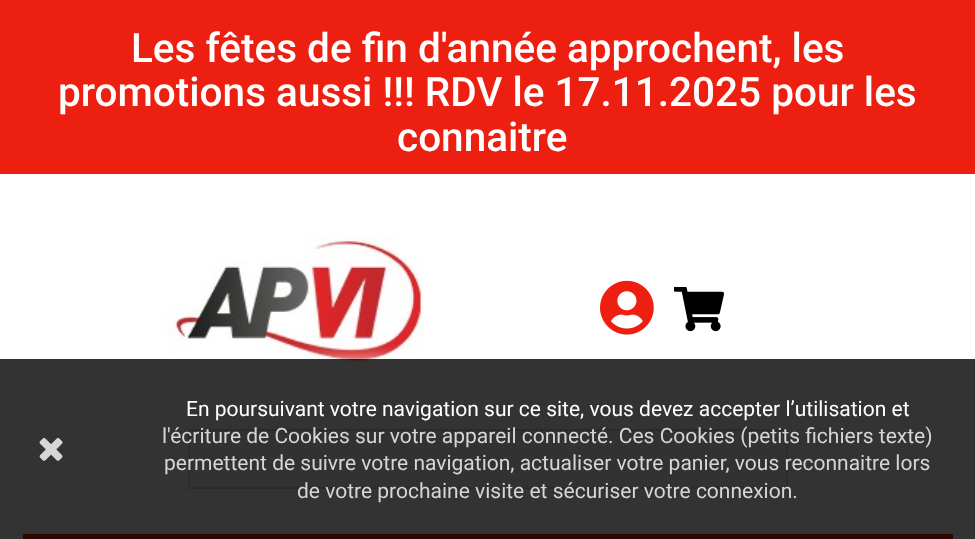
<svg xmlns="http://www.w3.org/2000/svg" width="975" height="539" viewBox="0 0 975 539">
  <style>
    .t1 { font: 500 40.5px Roboto; fill: #fff; }
    .t2 { font: 21px Roboto; fill: #fff; }
    .t3 { font: 21px Roboto; fill: #d6d6d6; }
  </style>
  <defs>
    <clipPath id="clip1"><rect x="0" y="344" width="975" height="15"/></clipPath>
  </defs>
  <rect width="100%" height="100%" fill="#fff"/>
  <rect x="0" y="0" width="975" height="174" fill="#ed1f10"/>
  <text x="131" y="62" class="t1">Les fêtes de fin d'année approchent, les</text>
  <text x="58" y="106" class="t1">promotions aussi !!! RDV le 17.11.2025 pour les</text>
  <text x="397" y="151" class="t1">connaitre</text>
  <image x="166" y="235" width="258" height="133" href="images/1.png"/>
  <image x="600" y="280" width="54" height="55" href="images/2.png"/>
  <image x="674" y="287" width="51" height="45" href="images/3.png"/>
  <rect x="189" y="430" width="598" height="58" fill="#fbfbfb" stroke="#d6d4d4" stroke-width="2"/>
  <rect x="23" y="534" width="930" height="5" fill="#ed1f10"/>
  <g clip-path="url(#clip1)">
    <rect x="0" y="359" width="975" height="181" fill="#ffffffcc" filter="blur(7.5px)"/>
  </g>
  <rect x="0" y="359" width="975" height="180" fill="#000000cc"/>
  <image x="39" y="438" width="24" height="23" href="images/4.png"/>
  <text x="186" y="416" class="t2">En poursuivant votre navigation sur ce site, vous devez accepter l’utilisation et</text>
  <text x="162" y="443" class="t3">l'écriture de Cookies sur votre appareil connecté. Ces Cookies (petits fichiers texte)</text>
  <text x="164" y="470" class="t3">permettent de suivre votre navigation, actualiser votre panier, vous reconnaitre lors</text>
  <text x="297" y="498" class="t3">de votre prochaine visite et sécuriser votre connexion.</text>
</svg>
